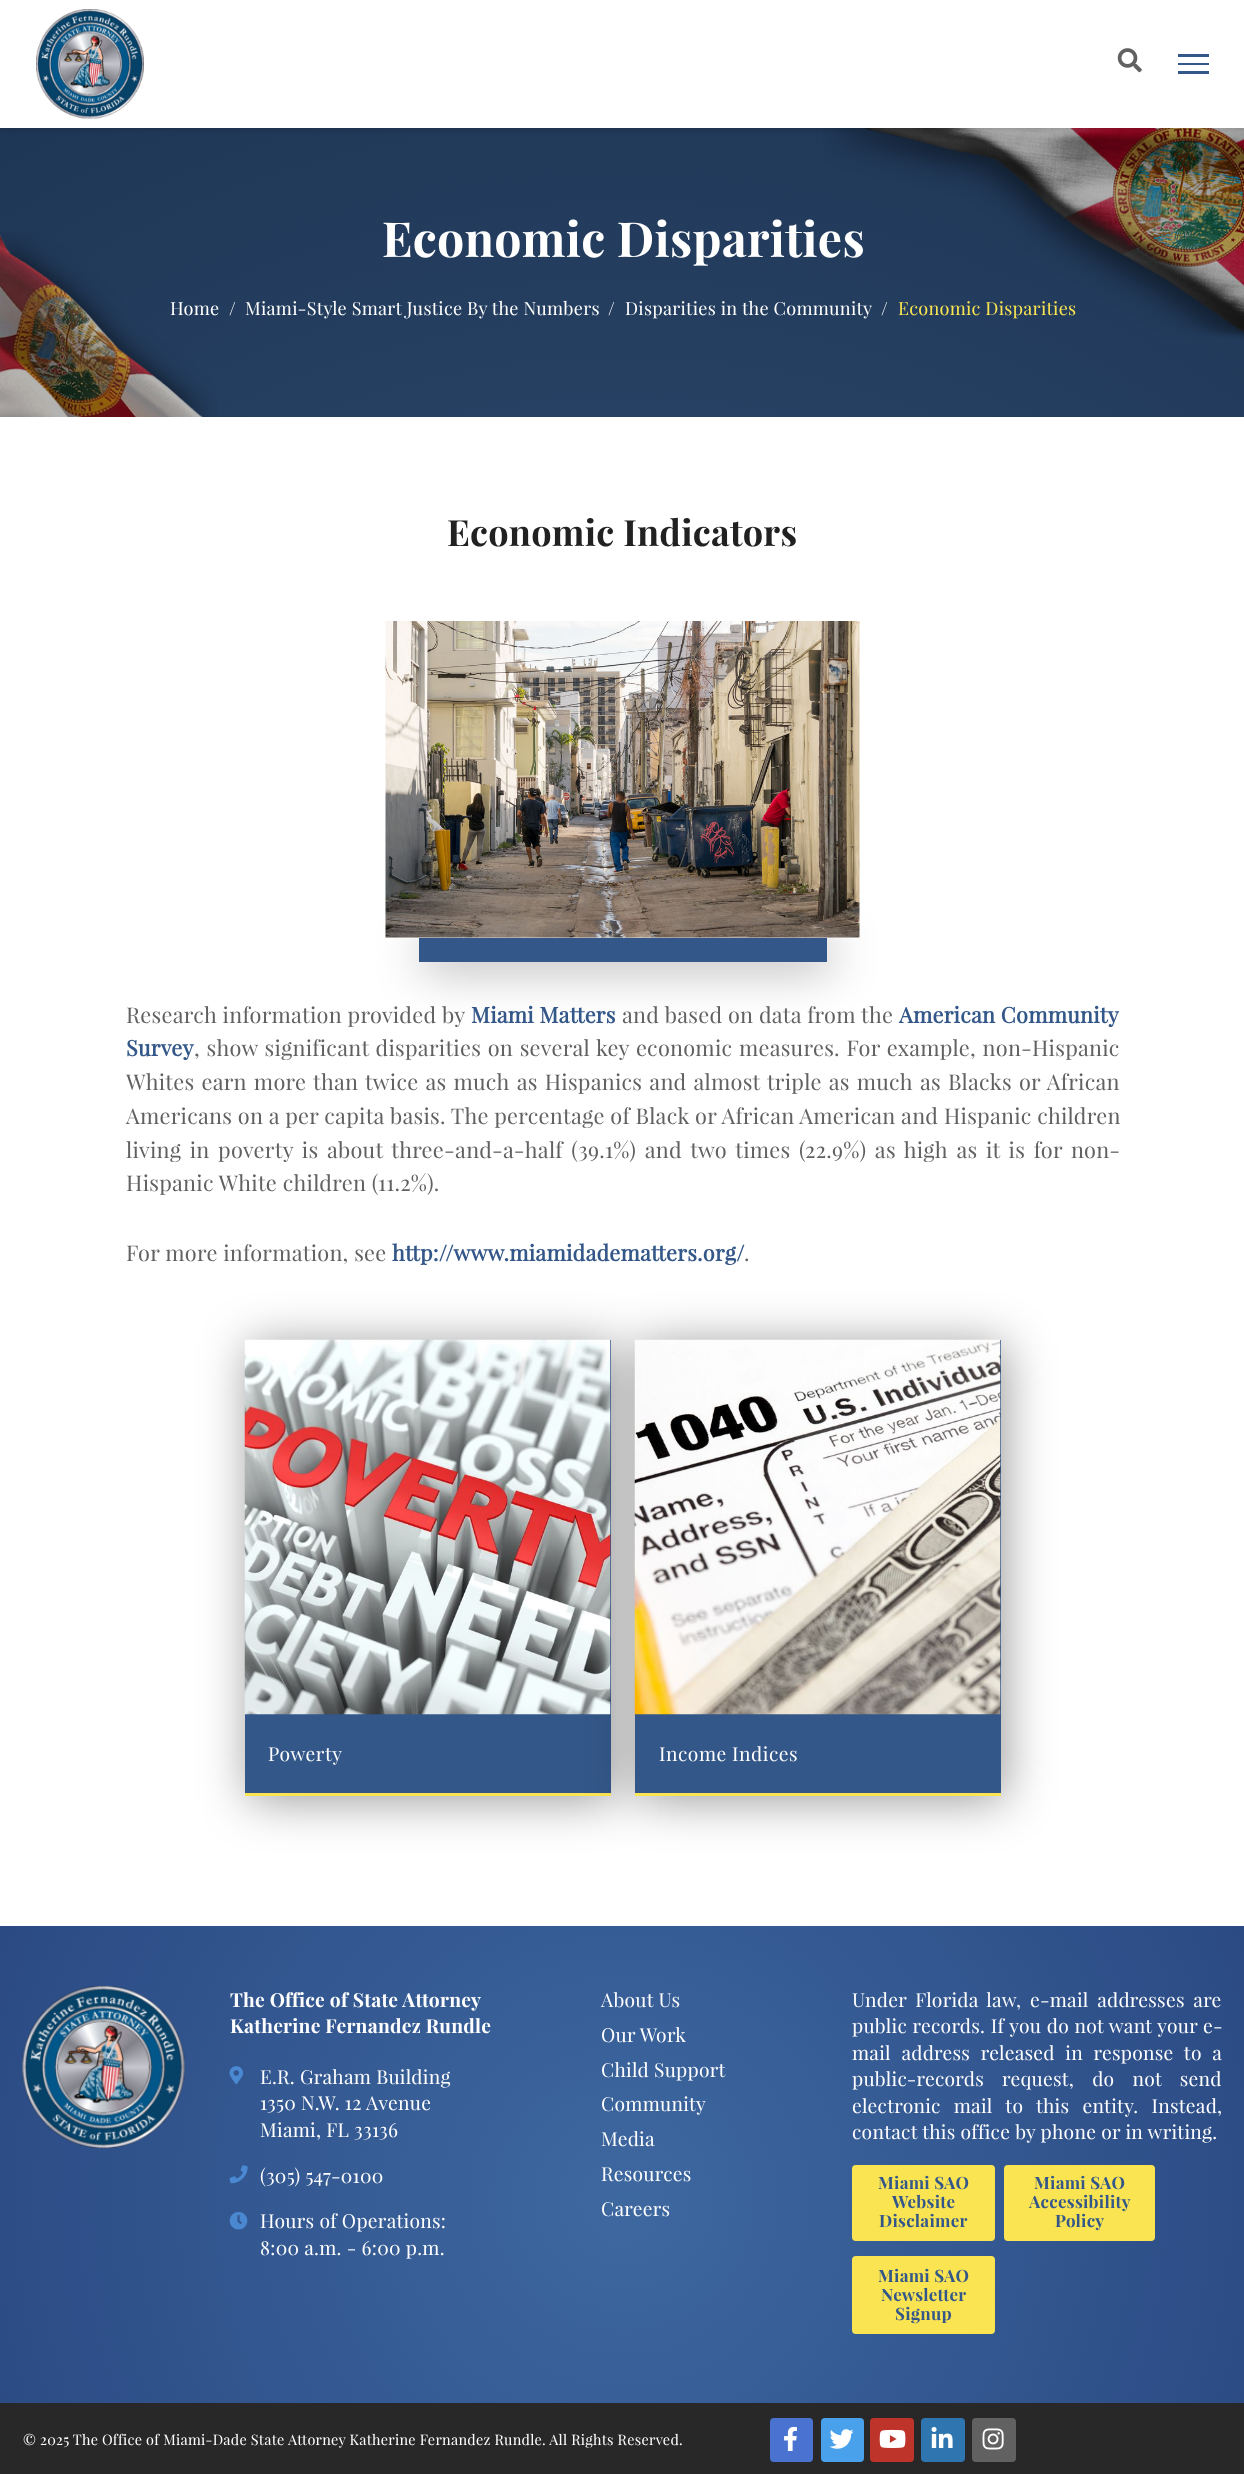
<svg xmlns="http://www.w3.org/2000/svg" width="1244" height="2474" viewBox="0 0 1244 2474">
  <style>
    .t1 { font: bold 48.25px Playfair Display; letter-spacing: 0.25px; fill: #fff; }
    .t2 { font: 18.1px Playfair Display; letter-spacing: 0.25px; fill: #fff; }
    .t3 { font: 18.1px Playfair Display; letter-spacing: 0.25px; fill: #fbe452; }
    .t4 { font: bold 36.1px Playfair Display; letter-spacing: 0.25px; fill: #212121; }
    .t5 { font: 21.7px Playfair Display; letter-spacing: 0.25px; fill: #616161; }
    .t6 { font: bold 21.7px 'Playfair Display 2'; letter-spacing: 0.25px; fill: #335788; }
    .t7 { font: 19.25px Playfair Display; letter-spacing: 0.5px; fill: #fff; }
    .t8 { font: bold 19.25px Playfair Display; letter-spacing: 0.25px; fill: #fff; }
    .t9 { font: 19.25px Playfair Display; letter-spacing: 0.25px; fill: #fff; }
    .t10 { font: bold 17px Playfair Display; letter-spacing: 0.25px; fill: #335788; }
    .t11 { font: 14.45px Playfair Display; letter-spacing: 0.25px; fill: #fff; }
  </style>
  <defs>
    <radialGradient id="g1" gradientUnits="userSpaceOnUse" cx="623" cy="1238" r="1385"><stop offset="0" stop-color="#34537c"/><stop offset="1" stop-color="#1d3452"/></radialGradient>
    <radialGradient id="g2" gradientUnits="userSpaceOnUse" cx="623" cy="2201" r="680"><stop offset="0" stop-color="#3e68a0"/><stop offset="1" stop-color="#2b4a84"/></radialGradient>
  </defs>
  <rect width="100%" height="100%" fill="#fff"/>
  <rect x="0" y="128" width="1244" height="289" fill="url(#g1)"/>
  <image x="823" y="128" width="421" height="212" href="images/3.png"/>
  <rect x="0" y="3" width="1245" height="128" fill="#0000001a" filter="blur(2px)"/>
  <rect x="0" y="0" width="1244" height="128" fill="#fff"/>
  <image x="36" y="9" width="108" height="110" href="images/1.png"/>
  <image x="1117" y="48" width="25" height="25" href="images/2.png"/>
  <rect x="1178" y="63" width="31" height="2" fill="#335788"/>
  <rect x="1178" y="54" width="31" height="3" fill="#335788"/>
  <rect x="1178" y="71" width="31" height="3" fill="#335788"/>
  <image x="0" y="232" width="217" height="185" href="images/4.png"/>
  <text x="382" y="257" class="t1">Economic Disparities</text>
  <text x="170" y="315" class="t2">Home</text>
  <text x="229" y="315" class="t2">/</text>
  <text x="245" y="315" class="t2">Miami-Style Smart Justice By the Numbers</text>
  <text x="608" y="315" class="t2">/</text>
  <text x="625" y="315" class="t2">Disparities in the Community</text>
  <text x="881" y="315" class="t2">/</text>
  <text x="898" y="315" class="t3">Economic Disparities</text>
  <text x="447" y="546" class="t4">Economic Indicators</text>
  <rect x="423" y="942" width="408" height="24" fill="#00000066" filter="blur(24px)"/>
  <image x="385" y="621" width="475" height="317" href="images/5.png"/>
  <rect x="419" y="938" width="408" height="24" fill="#335788"/>
  <text x="126" y="1023" class="t5">Research information provided by</text>
  <text x="471" y="1023" class="t6">Miami Matters</text>
  <text x="622" y="1023" class="t5">and based on data from the</text>
  <text x="899" y="1023" class="t6">American Community</text>
  <text x="126" y="1056" class="t6">Survey</text>
  <text x="194" y="1056" word-spacing="1" class="t5">, show significant disparities on several key economic measures. For example, non-Hispanic</text>
  <text x="126" y="1090" word-spacing="1.4" class="t5">Whites earn more than twice as much as Hispanics and almost triple as much as Blacks or African</text>
  <text x="126" y="1124" class="t5">Americans on a per capita basis. The percentage of Black or African American and Hispanic children</text>
  <text x="126" y="1158" word-spacing="2.9" class="t5">living in poverty is about three-and-a-half (39.1%) and two times (22.9%) as high as it is for non-</text>
  <text x="126" y="1191" class="t5">Hispanic White children (11.2%).</text>
  <text x="126" y="1261" class="t5">For more information, see</text>
  <text x="392" y="1261" class="t6">http://www.miamidadematters.org/</text>
  <text x="744" y="1261" class="t5">.</text>
  <rect x="249" y="1344" width="366" height="456" fill="#00000066" filter="blur(24px)"/>
  <rect x="245" y="1340" width="366" height="453" fill="#335788"/>
  <rect x="245" y="1793" width="366" height="3" fill="#fbe452"/>
  <rect x="639" y="1344" width="366" height="456" fill="#00000066" filter="blur(24px)"/>
  <image x="244" y="1339" width="367" height="376" href="images/6.png"/>
  <text x="268" y="1761" class="t7">Powerty</text>
  <rect x="635" y="1340" width="366" height="453" fill="#335788"/>
  <rect x="635" y="1793" width="366" height="3" fill="#fbe452"/>
  <image x="634" y="1339" width="367" height="376" href="images/7.png"/>
  <text x="659" y="1761" class="t7">Income Indices</text>
  <rect x="0" y="1926" width="1244" height="477" fill="url(#g2)"/>
  <image x="22" y="1986" width="163" height="162" href="images/8.png"/>
  <text x="230" y="2007" class="t8">The Office of State Attorney</text>
  <text x="230" y="2033" class="t8">Katherine Fernandez Rundle</text>
  <image x="229" y="2066" width="14" height="19" href="images/9.png"/>
  <text x="260" y="2084" class="t9">E.R. Graham Building</text>
  <text x="260" y="2110" class="t9">1350 N.W. 12 Avenue</text>
  <text x="260" y="2137" class="t9">Miami, FL 33136</text>
  <image x="229" y="2165" width="19" height="19" href="images/10.png"/>
  <text x="260" y="2183" class="t9">(305) 547-0100</text>
  <image x="229" y="2212" width="19" height="18" href="images/11.png"/>
  <text x="260" y="2228" class="t9">Hours of Operations:</text>
  <text x="260" y="2255" class="t9">8:00 a.m. - 6:00 p.m.</text>
  <text x="601" y="2007" class="t9">About Us</text>
  <text x="601" y="2042" class="t9">Our Work</text>
  <text x="601" y="2077" class="t9">Child Support</text>
  <text x="601" y="2111" class="t9">Community</text>
  <text x="601" y="2146" class="t9">Media</text>
  <text x="601" y="2181" class="t9">Resources</text>
  <text x="601" y="2216" class="t9">Careers</text>
  <text x="852" y="2007" word-spacing="3.5" class="t9">Under Florida law, e-mail addresses are</text>
  <text x="852" y="2033" word-spacing="0.5" class="t9">public records. If you do not want your e-</text>
  <text x="852" y="2060" word-spacing="5.5" class="t9">mail address released in response to a</text>
  <text x="852" y="2086" word-spacing="13" class="t9">public-records request, do not send</text>
  <text x="852" y="2113" word-spacing="8" class="t9">electronic mail to this entity. Instead,</text>
  <text x="852" y="2139" class="t9">contact this office by phone or in writing.</text>
  <rect x="853" y="2166" width="141" height="74" rx="3" fill="#fbe452" stroke="#fbe452" stroke-width="2"/>
  <text x="878" y="2189" class="t10">Miami SAO</text>
  <text x="892" y="2208" class="t10">Website</text>
  <text x="879" y="2227" class="t10">Disclaimer</text>
  <rect x="1005" y="2166" width="149" height="74" rx="3" fill="#fbe452" stroke="#fbe452" stroke-width="2"/>
  <text x="1034" y="2189" class="t10">Miami SAO</text>
  <text x="1029" y="2208" class="t10">Accessibility</text>
  <text x="1055" y="2227" class="t10">Policy</text>
  <rect x="853" y="2257" width="141" height="76" rx="3" fill="#fbe452" stroke="#fbe452" stroke-width="2"/>
  <text x="878" y="2282" class="t10">Miami SAO</text>
  <text x="881" y="2301" class="t10">Newsletter</text>
  <text x="895" y="2320" class="t10">Signup</text>
  <rect x="0" y="2403" width="1244" height="71" fill="#282828"/>
  <text x="23" y="2445" class="t11">© 2025 The Office of Miami-Dade State Attorney Katherine Fernandez Rundle. All Rights Reserved.</text>
  <rect x="770" y="2418" width="43" height="44" rx="4" fill="#4a73d1"/>
  <image x="784" y="2426" width="13" height="25" href="images/12.png"/>
  <rect x="821" y="2418" width="43" height="44" rx="4" fill="#49a0eb"/>
  <image x="829" y="2429" width="25" height="20" href="images/13.png"/>
  <rect x="870" y="2418" width="44" height="44" rx="4" fill="#be342b"/>
  <image x="879" y="2429" width="27" height="19" href="images/14.png"/>
  <rect x="921" y="2418" width="44" height="44" rx="4" fill="#2f76b0"/>
  <image x="931" y="2427" width="22" height="21" href="images/15.png"/>
  <rect x="972" y="2418" width="44" height="44" rx="4" fill="#616161"/>
  <image x="982" y="2428" width="22" height="22" href="images/16.png"/>
</svg>
